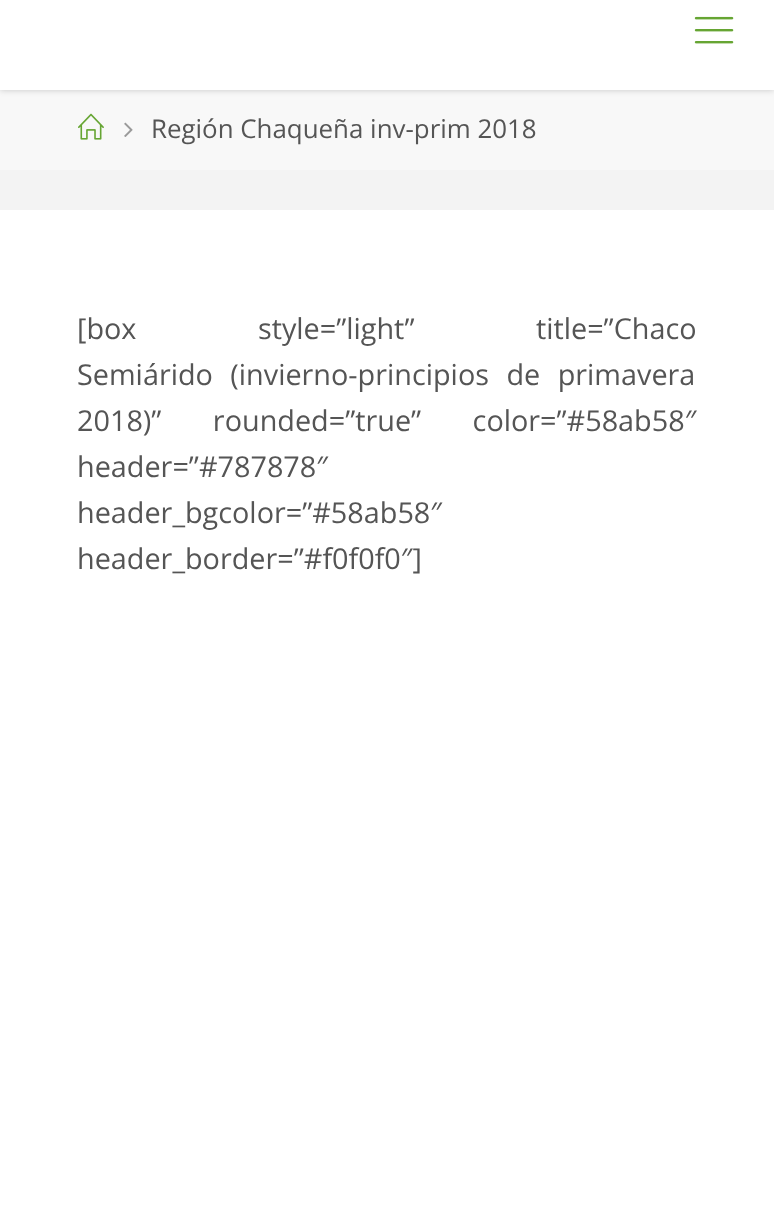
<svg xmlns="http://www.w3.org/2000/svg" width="774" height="1212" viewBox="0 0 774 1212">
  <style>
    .t1 { font: 25.9px Open Sans; fill: #555; }
    .t2 { font: 28.8px Open Sans; fill: #555; }
  </style>
  <rect width="100%" height="100%" fill="#f3f3f3"/>
  <rect x="0" y="90" width="774" height="80" fill="#f8f8f8"/>
  <rect x="0" y="-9" width="774" height="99" fill="#00000033" filter="blur(3px)"/>
  <rect x="0" y="0" width="774" height="90" fill="#fff"/>
  <image x="694" y="16" width="40" height="28" href="images/1.png"/>
  <image x="78" y="113" width="26" height="27" href="images/2.png"/>
  <image x="124" y="122" width="9" height="15" href="images/3.png"/>
  <text x="151" y="138" class="t1">Región Chaqueña inv-prim 2018</text>
  <rect x="0" y="210" width="774" height="1002" fill="#fff"/>
  <text x="77" y="339" word-spacing="114" class="t2">[box style=”light” title=”Chaco</text>
  <text x="77" y="385" word-spacing="10" class="t2">Semiárido (invierno-principios de primavera</text>
  <text x="77" y="431" word-spacing="44" class="t2">2018)” rounded=”true” color=”#58ab58″</text>
  <text x="77" y="477" class="t2">header=”#787878″</text>
  <text x="77" y="523" class="t2">header_bgcolor=”#58ab58″</text>
  <text x="77" y="569" class="t2">header_border=”#f0f0f0″]</text>
</svg>
